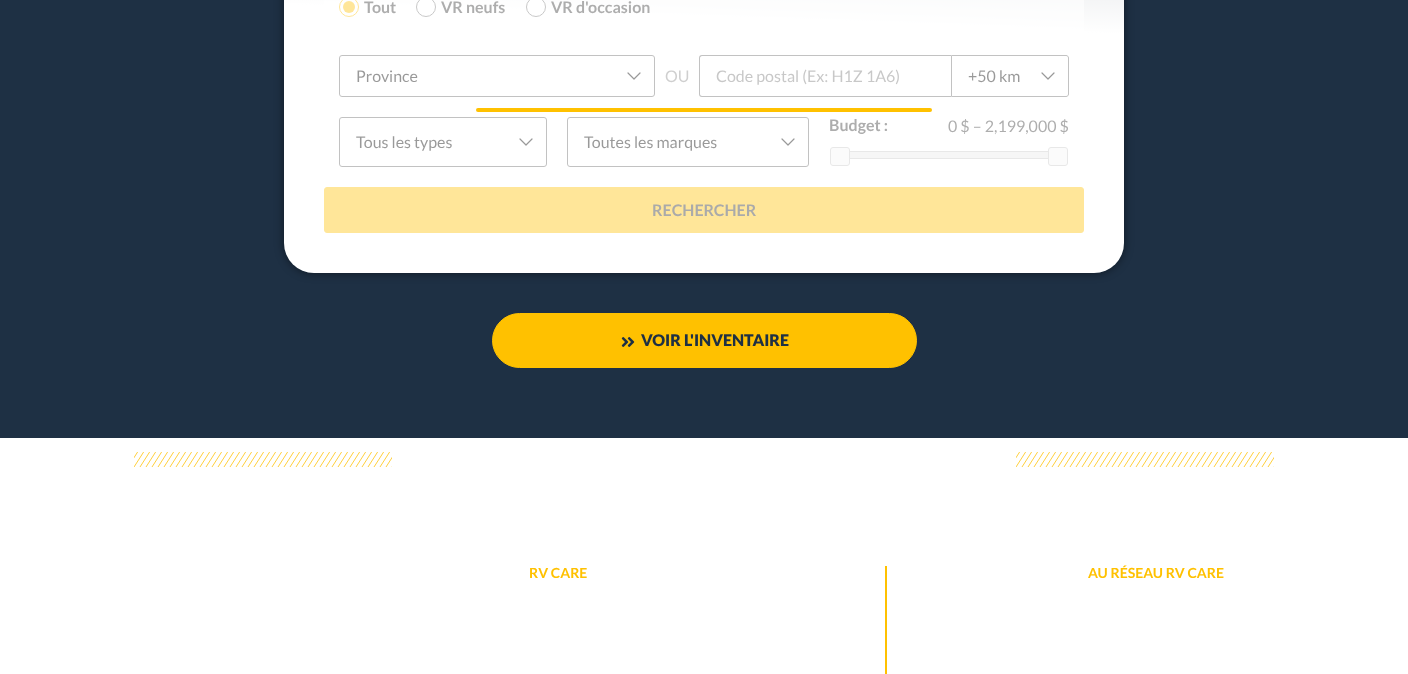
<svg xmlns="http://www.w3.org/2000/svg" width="1408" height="674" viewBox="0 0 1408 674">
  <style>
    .t1 { font: bold 16px Lato; fill: #333; }
    .t2 { font: 16px Lato; fill: #000; }
    .t3 { font: 16px Lato; fill: #888; }
    .t4 { font: 16px Lato; fill: #757575; }
    .t5 { font: 16px Lato; fill: #333; }
    .t6 { font: bold 16px Lato; fill: #2c2c2c; }
    .t7 { font: 900 16px Lato; fill: #1e3044; }
    .t8 { font: bold 14px Lato; fill: #ffc100; }
  </style>
  <defs>
    <clipPath id="clip1"><path d="M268 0H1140V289H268ZM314-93H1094C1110.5-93 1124-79.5 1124-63V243C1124 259.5 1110.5 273 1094 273H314C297.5 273 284 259.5 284 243V-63C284-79.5 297.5-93 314-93Z" clip-rule="evenodd"/></clipPath>
    <linearGradient id="g1" gradientUnits="userSpaceOnUse" x1="711" y1="-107" x2="697" y2="287"><stop offset="0" stop-color="#fff" stop-opacity="0.82"/><stop offset="0.32" stop-color="#fff"/></linearGradient>
  </defs>
  <rect width="100%" height="100%" fill="#fff"/>
  <rect x="0" y="0" width="1408" height="438" fill="#1e3044"/>
  <g clip-path="url(#clip1)">
    <rect x="284" y="-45" width="840" height="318" rx="30" fill="#00000080" filter="blur(5px)"/>
  </g>
  <rect x="284" y="-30" width="840" height="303" rx="30" fill="url(#g1)"/>
  <circle cx="349" cy="7" r="9.5" fill="none" stroke="#ffc100"/>
  <circle cx="349" cy="7" r="6" fill="#ffc100"/>
  <text x="364" y="13" class="t1">Tout</text>
  <circle cx="426" cy="7" r="9.5" fill="#fff" stroke="#767676"/>
  <text x="441" y="13" class="t1">VR neufs</text>
  <circle cx="536" cy="7" r="9.5" fill="#fff" stroke="#767676"/>
  <text x="551" y="13" class="t1">VR d'occasion</text>
  <path d="M640 73L634 79L628 73" fill="none" stroke="#000" stroke-width="1.2" stroke-linecap="round" stroke-linejoin="round"/>
  <rect x="339.5" y="55.5" width="315" height="41" rx="2.5" fill="none" stroke="#666"/>
  <text x="356" y="82" class="t2">Province</text>
  <text x="665" y="82" class="t3">OU</text>
  <path d="M702 55H951V97H702C700 97 699 96 699 94V58C699 56 700 55 702 55ZM702 56H951V96H702C701 96 700 95 700 94V58C700 57 701 56 702 56Z" fill="#666" fill-rule="evenodd"/>
  <text x="716" y="82" class="t4">Code postal (Ex: H1Z 1A6)</text>
  <path d="M1054 73L1048 79L1042 73" fill="none" stroke="#000" stroke-width="1.2" stroke-linecap="round" stroke-linejoin="round"/>
  <path d="M951.5 55.5H1066C1067.5 55.5 1068.5 56.5 1068.5 58V94C1068.5 95.5 1067.5 96.5 1066 96.5H951.5Z" fill="none" stroke="#666"/>
  <text x="968" y="82" class="t2">+50 km</text>
  <text x="829" y="131" class="t1">Budget :</text>
  <text x="948" y="132" class="t5">0 $ – 2,199,000 $</text>
  <rect x="839.5" y="151.5" width="219" height="7" fill="none" stroke="#c5c5c5"/>
  <rect x="830.5" y="147.5" width="19" height="18" rx="2.5" fill="#f6f6f6" stroke="#c5c5c5"/>
  <rect x="850" y="152" width="198" height="6" fill="#e9e9e9"/>
  <rect x="1048.5" y="147.5" width="19" height="18" rx="2.5" fill="#f6f6f6" stroke="#c5c5c5"/>
  <path d="M532 139L526 145L520 139" fill="none" stroke="#000" stroke-width="1.2" stroke-linecap="round" stroke-linejoin="round"/>
  <rect x="339.5" y="117.5" width="207" height="49" rx="2.5" fill="none" stroke="#666"/>
  <text x="356" y="148" class="t2">Tous les types</text>
  <path d="M794 139L788 145L782 139" fill="none" stroke="#000" stroke-width="1.2" stroke-linecap="round" stroke-linejoin="round"/>
  <rect x="567.5" y="117.5" width="241" height="49" rx="2.5" fill="none" stroke="#666"/>
  <text x="584" y="148" class="t2">Toutes les marques</text>
  <rect x="324.5" y="187.5" width="759" height="45" rx="2.5" fill="#ffc100" stroke="#ffc100"/>
  <text x="652" y="216" class="t6">RECHERCHER</text>
  <rect x="324" y="0" width="760" height="233" fill="#ffffff99"/>
  <rect x="476" y="108" width="456" height="4" rx="2" fill="#ffc100"/>
  <rect x="492.5" y="313.5" width="424" height="54" rx="27" fill="#ffc100" stroke="#ffc100"/>
  <image x="621" y="337" width="14" height="10" href="images/1.png"/>
  <text x="641" y="346" class="t7">VOIR L'INVENTAIRE</text>
  <image x="134" y="452" width="258" height="15" href="images/2.png"/>
  <image x="1016" y="452" width="258" height="15" href="images/2.png"/>
  <text x="529" y="578" class="t8">RV CARE</text>
  <rect x="885" y="566" width="2" height="108" fill="#ffc100"/>
  <text x="1088" y="578" class="t8">AU RÉSEAU RV CARE</text>
</svg>
